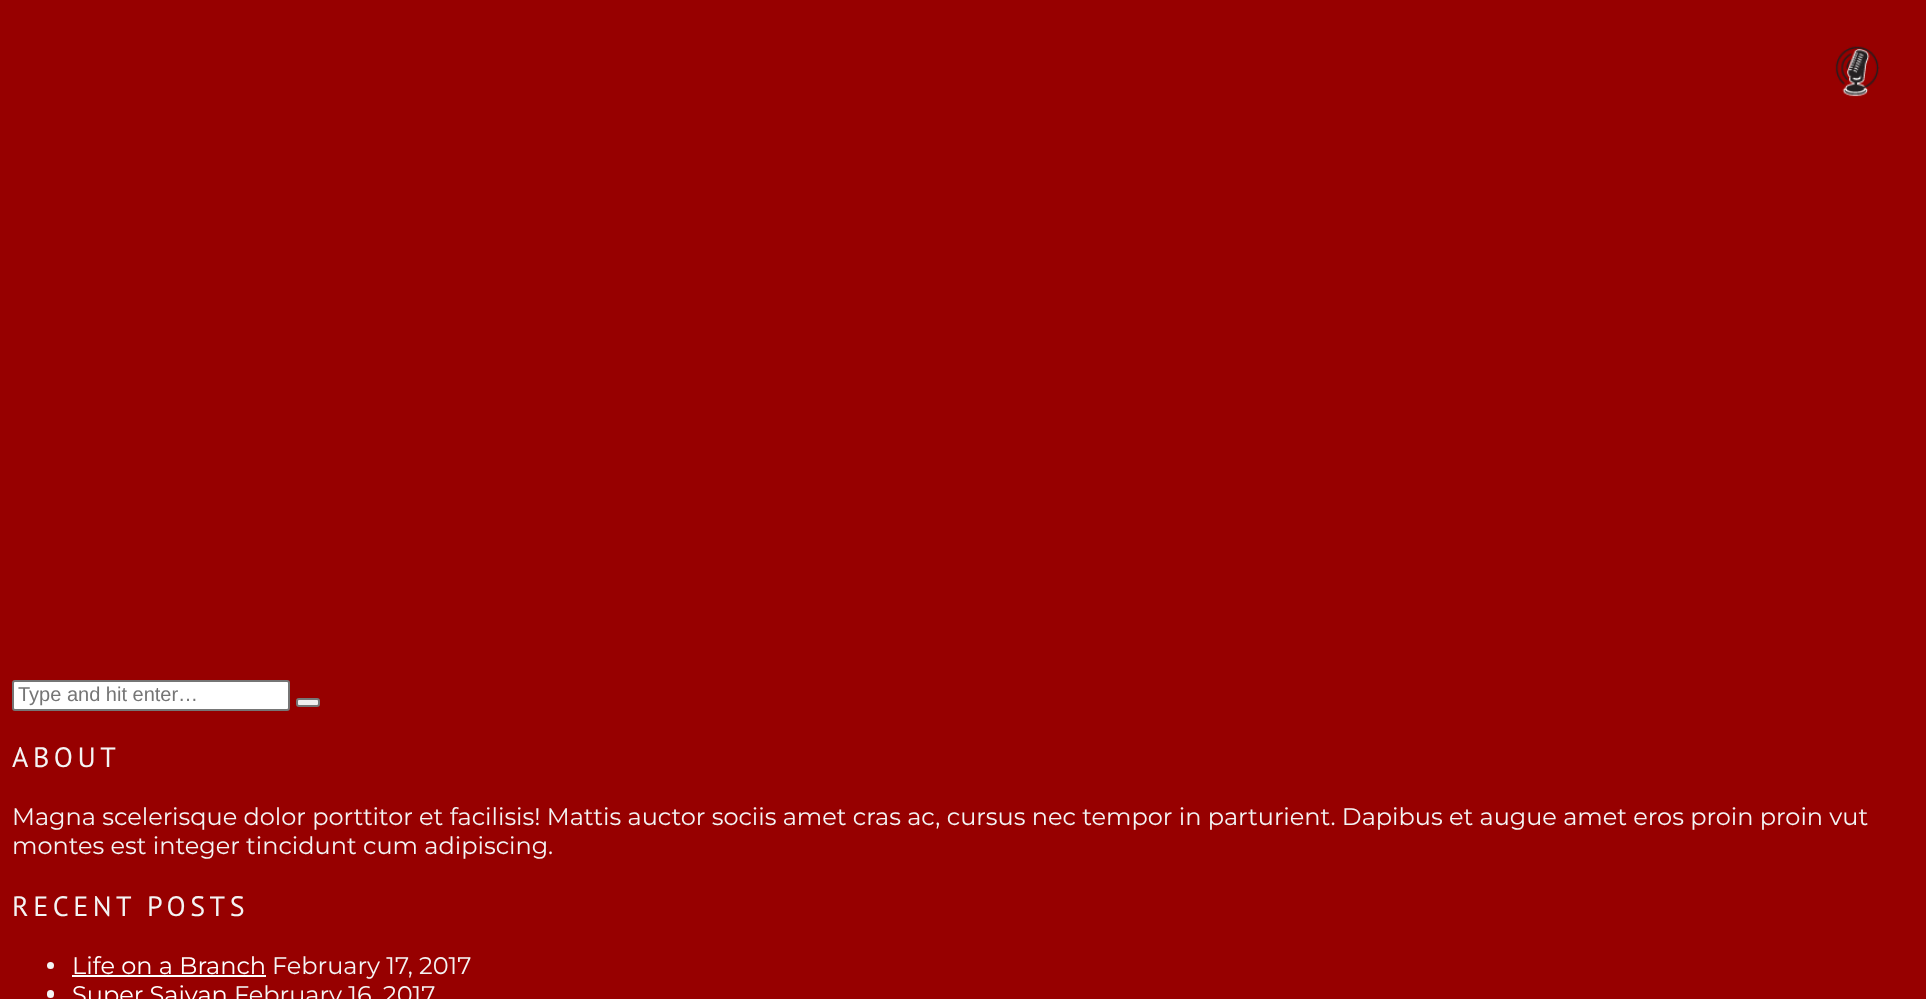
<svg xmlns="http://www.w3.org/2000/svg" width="1926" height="999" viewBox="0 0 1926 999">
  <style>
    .t1 { font: 20px Liberation Sans; fill: #757575; }
    .t2 { font: 28px PT Sans; letter-spacing: 4.5px; fill: #f4f4f4; }
    .t3 { font: 24px Montserrat; fill: #f4f4f4; }
    .t4 { font: 24px Montserrat; fill: #fff; }
  </style>
  <rect width="100%" height="100%" fill="#970000"/>
  <image x="1835" y="46" width="45" height="51" href="images/1.png"/>
  <rect x="13" y="681" width="276" height="29" rx="2" fill="#fff" stroke="#767676" stroke-width="2"/>
  <text x="18" y="701" class="t1">Type and hit enter…</text>
  <rect x="297" y="699" width="22" height="7" rx="2" fill="#efefef" stroke="#767676" stroke-width="2"/>
  <text x="12" y="767" class="t2">ABOUT</text>
  <text x="12" y="825" class="t3">Magna scelerisque dolor porttitor et facilisis! Mattis auctor sociis amet cras ac, cursus nec tempor in parturient. Dapibus et augue amet eros proin proin vut</text>
  <text x="12" y="854" class="t3">montes est integer tincidunt cum adipiscing.</text>
  <text x="12" y="916" class="t2">RECENT POSTS</text>
  <circle cx="50.5" cy="965.5" r="3.5" fill="#f4f4f4"/>
  <text x="72" y="974" class="t4">Life on a Branch</text>
  <rect x="72" y="975" width="194" height="2" fill="#fff"/>
  <text x="272" y="974" class="t3">February 17, 2017</text>
  <rect x="47" y="990" width="7" height="8" rx="3.5" fill="#f4f4f4"/>
  <text x="72" y="1003" class="t4">Super Saiyan</text>
  <text x="234" y="1003" class="t3">February 16, 2017</text>
</svg>
